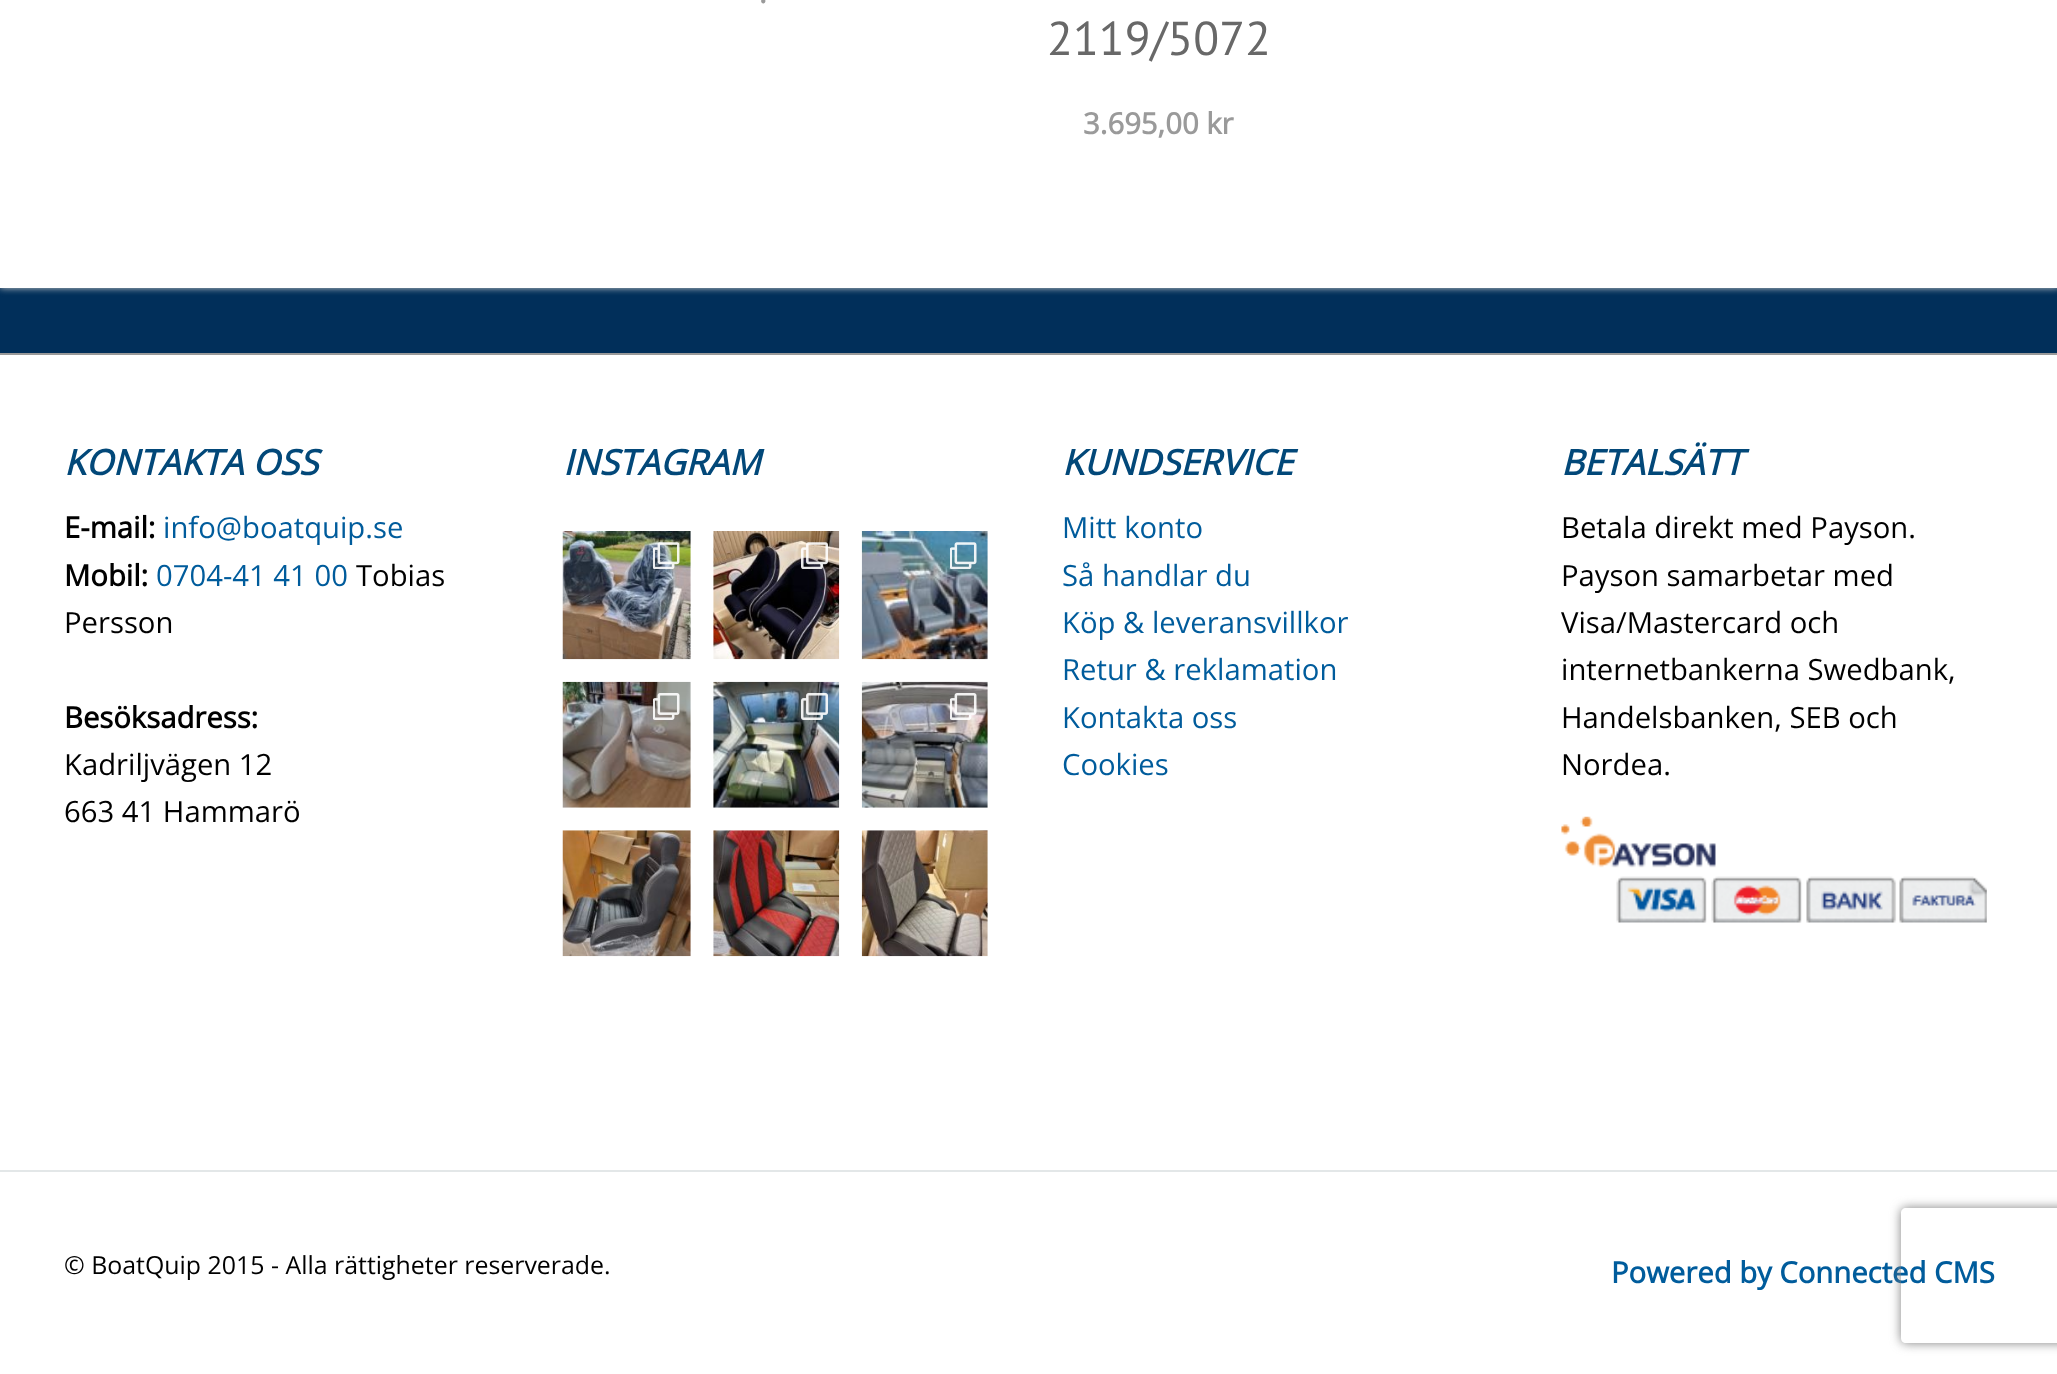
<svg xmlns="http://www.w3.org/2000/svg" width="2057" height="1374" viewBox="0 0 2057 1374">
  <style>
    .t1 { font: bold 29.25px Open Sans; fill: #9a9a9a; }
    .t2 { font: 47.5px PT Sans; fill: #686868; }
    .t3 { font: italic bold 35px Open Sans; fill: #024879; }
    .t4 { font: bold 29.25px Open Sans; fill: #000; }
    .t5 { font: 29.25px Open Sans; fill: #005c9c; }
    .t6 { font: 29.25px Open Sans; fill: #000; }
    .t7 { font: 24.9px Open Sans; fill: #000; }
    .t8 { font: bold 29.25px Open Sans; fill: #005c9c; }
  </style>
  <defs>
    <clipPath id="clip1"><path d="M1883 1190H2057V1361H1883ZM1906 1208H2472C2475 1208 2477 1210 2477 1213V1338C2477 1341 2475 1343 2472 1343H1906C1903 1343 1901 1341 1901 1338V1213C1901 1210 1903 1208 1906 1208Z" clip-rule="evenodd"/></clipPath>
  </defs>
  <rect width="100%" height="100%" fill="#012f5a"/>
  <rect x="0" y="-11" width="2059" height="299" fill="#ccc" filter="blur(3.5px)"/>
  <rect x="0" y="0" width="2057" height="288" fill="#fff"/>
  <text x="759" y="3" class="t1">.</text>
  <text x="1047" y="55" class="t2">2119/5072</text>
  <text x="1083" y="134" class="t1">3.695,00 kr</text>
  <rect x="0" y="355" width="2057" height="1019" fill="#fff"/>
  <rect x="0" y="353" width="2057" height="2" fill="#999"/>
  <text x="64" y="475" class="t3">KONTAKTA OSS</text>
  <text x="64" y="538" class="t4">E-mail:</text>
  <text x="163" y="538" class="t5">info@boatquip.se</text>
  <text x="64" y="586" class="t4">Mobil:</text>
  <text x="156" y="586" class="t5">0704-41 41 00</text>
  <text x="356" y="586" class="t6">Tobias</text>
  <text x="64" y="633" class="t6">Persson</text>
  <text x="64" y="728" class="t4">Besöksadress:</text>
  <text x="64" y="775" class="t6">Kadriljvägen 12</text>
  <text x="64" y="822" class="t6">663 41 Hammarö</text>
  <text x="563" y="475" class="t3">INSTAGRAM</text>
  <image x="562" y="531" width="129" height="129" href="images/1.png"/>
  <image x="653" y="542" width="27" height="27" href="images/2.png"/>
  <image x="713" y="531" width="127" height="129" href="images/3.png"/>
  <image x="801" y="542" width="27" height="27" href="images/4.png"/>
  <image x="861" y="531" width="127" height="129" href="images/5.png"/>
  <image x="950" y="542" width="27" height="27" href="images/6.png"/>
  <image x="562" y="681" width="129" height="127" href="images/7.png"/>
  <image x="653" y="693" width="27" height="27" href="images/8.png"/>
  <image x="713" y="681" width="127" height="127" href="images/9.png"/>
  <image x="801" y="693" width="27" height="27" href="images/10.png"/>
  <image x="861" y="681" width="127" height="127" href="images/11.png"/>
  <image x="950" y="693" width="27" height="27" href="images/12.png"/>
  <image x="562" y="830" width="129" height="127" href="images/13.png"/>
  <image x="713" y="830" width="127" height="127" href="images/14.png"/>
  <image x="861" y="830" width="127" height="127" href="images/15.png"/>
  <text x="1062" y="475" class="t3">KUNDSERVICE</text>
  <text x="1062" y="538" class="t5">Mitt konto</text>
  <text x="1062" y="586" class="t5">Så handlar du</text>
  <text x="1062" y="633" class="t5">Köp &amp; leveransvillkor</text>
  <text x="1062" y="680" class="t5">Retur &amp; reklamation</text>
  <text x="1062" y="728" class="t5">Kontakta oss</text>
  <text x="1062" y="775" class="t5">Cookies</text>
  <text x="1561" y="475" class="t3">BETALSÄTT</text>
  <text x="1561" y="538" class="t6">Betala direkt med Payson.</text>
  <text x="1561" y="586" class="t6">Payson samarbetar med</text>
  <text x="1561" y="633" class="t6">Visa/Mastercard och</text>
  <text x="1561" y="680" class="t6">internetbankerna Swedbank,</text>
  <text x="1561" y="728" class="t6">Handelsbanken, SEB och</text>
  <text x="1561" y="775" class="t6">Nordea.</text>
  <image x="1561" y="816" width="426" height="107" href="images/16.png"/>
  <rect x="0" y="1170" width="2057" height="2" fill="#e3e7e8"/>
  <text x="64" y="1274" class="t7">© BoatQuip 2015 - Alla rättigheter reserverade.</text>
  <text x="1611" y="1283" class="t8">Powered by Connected CMS</text>
  <g clip-path="url(#clip1)">
    <rect x="1901" y="1208" width="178" height="135" rx="5" fill="#808080" filter="blur(5.5px)"/>
  </g>
</svg>
